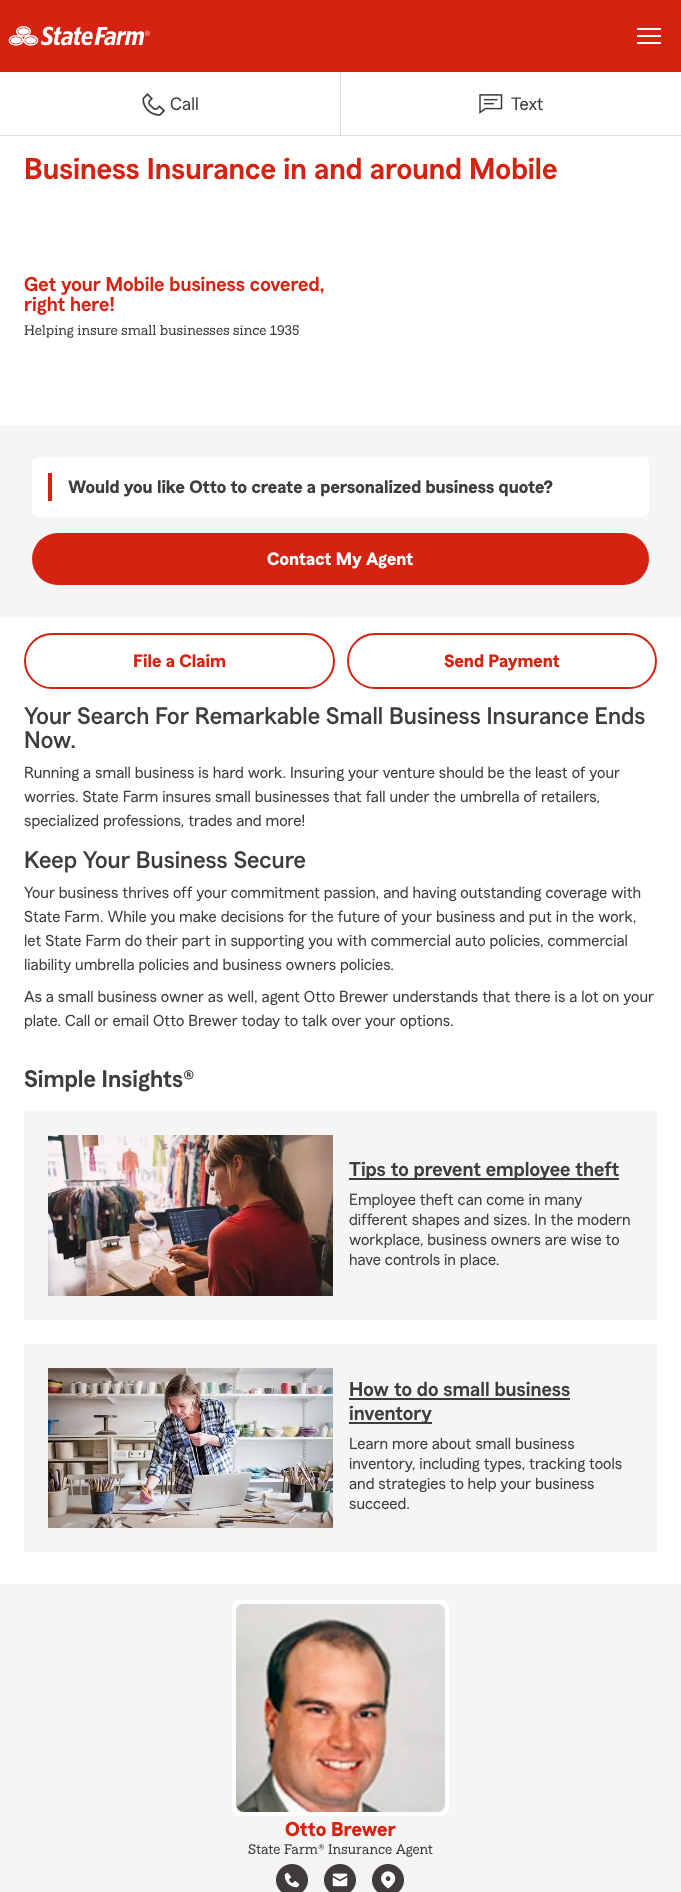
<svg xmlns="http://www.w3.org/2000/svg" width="681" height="1892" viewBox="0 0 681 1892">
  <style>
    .t1 { font: 18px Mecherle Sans; fill: #403c3c; }
    .t2 { font: 600 30px Mecherle Sans; fill: #d62311; }
    .t3 { font: 600 20px Mecherle Sans; fill: #d62311; }
    .t4 { font: 14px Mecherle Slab; fill: #403c3c; }
    .t5 { font: bold 18px Mecherle Sans; fill: #403c3c; }
    .t6 { font: bold 18px Mecherle Sans; fill: #fff; }
    .t7 { font: bold 18px Mecherle Sans; fill: #d62311; }
    .t8 { font: 500 24px Mecherle Sans; fill: #403c3c; }
    .t9 { font: 16px Mecherle Sans; fill: #403c3c; }
    .t10 { font: 600 24px Mecherle Sans; fill: #403c3c; }
    .t11 { font: 600 20px Mecherle Sans; fill: #403c3c; }
    .t12 { font: bold 20px Mecherle Sans; fill: #d62311; }
  </style>
  <rect width="100%" height="100%" fill="#fff"/>
  <rect x="0" y="0" width="681" height="72" fill="#d62311"/>
  <image x="8" y="26" width="142" height="20" href="images/1.png"/>
  <rect x="637" y="28" width="24" height="2" fill="#fff"/>
  <rect x="637" y="35" width="24" height="2" fill="#fff"/>
  <rect x="637" y="42" width="24" height="2" fill="#fff"/>
  <rect x="0" y="135" width="681" height="1" fill="#dcdcdc"/>
  <image x="142" y="93" width="24" height="23" href="images/2.png"/>
  <text x="170" y="110" class="t1">Call</text>
  <rect x="340" y="72" width="1" height="63" fill="#dcdcdc"/>
  <image x="479" y="94" width="24" height="20" href="images/3.png"/>
  <text x="511" y="110" class="t1">Text</text>
  <text x="24" y="179" class="t2">Business Insurance in and around Mobile</text>
  <text x="24" y="291" class="t3">Get your Mobile business covered,</text>
  <text x="24" y="311" class="t3">right here!</text>
  <text x="24" y="335" class="t4">Helping insure small businesses since 1935</text>
  <rect x="0" y="425" width="681" height="192" fill="#f5f5f5"/>
  <rect x="32" y="457" width="617" height="60" rx="6" fill="#fff"/>
  <rect x="48" y="473" width="4" height="28" fill="#d62311"/>
  <text x="68" y="493" class="t5">Would you like Otto to create a personalized business quote?</text>
  <rect x="32" y="533" width="617" height="52" rx="26" fill="#d62311"/>
  <text x="267" y="565" class="t6">Contact My Agent</text>
  <rect x="25" y="634" width="309" height="54" rx="27" fill="none" stroke="#d62311" stroke-width="2"/>
  <text x="133" y="667" class="t7">File a Claim</text>
  <rect x="348" y="634" width="308" height="54" rx="27" fill="none" stroke="#d62311" stroke-width="2"/>
  <text x="444" y="667" class="t7">Send Payment</text>
  <text x="24" y="724" class="t8">Your Search For Remarkable Small Business Insurance Ends</text>
  <text x="24" y="748" class="t8">Now.</text>
  <text x="24" y="778" class="t9">Running a small business is hard work. Insuring your venture should be the least of your</text>
  <text x="24" y="802" class="t9">worries. State Farm insures small businesses that fall under the umbrella of retailers,</text>
  <text x="24" y="826" class="t9">specialized professions, trades and more!</text>
  <text x="24" y="868" class="t8">Keep Your Business Secure</text>
  <text x="24" y="898" class="t9">Your business thrives off your commitment passion, and having outstanding coverage with</text>
  <text x="24" y="922" class="t9">State Farm. While you make decisions for the future of your business and put in the work,</text>
  <text x="24" y="946" class="t9">let State Farm do their part in supporting you with commercial auto policies, commercial</text>
  <text x="24" y="970" class="t9">liability umbrella policies and business owners policies.</text>
  <text x="24" y="1002" class="t9">As a small business owner as well, agent Otto Brewer understands that there is a lot on your</text>
  <text x="24" y="1026" class="t9">plate. Call or email Otto Brewer today to talk over your options.</text>
  <text x="24" y="1087" class="t10">Simple Insights®</text>
  <rect x="24" y="1111" width="633" height="209" fill="#f5f5f5"/>
  <image x="48" y="1135" width="285" height="161" href="images/4.png"/>
  <rect x="349" y="1178" width="270" height="2" fill="#403c3c"/>
  <text x="349" y="1176" class="t11">Tips to prevent employee theft</text>
  <text x="349" y="1205" class="t9">Employee theft can come in many</text>
  <text x="349" y="1225" class="t9">different shapes and sizes. In the modern</text>
  <text x="349" y="1245" class="t9">workplace, business owners are wise to</text>
  <text x="349" y="1265" class="t9">have controls in place.</text>
  <rect x="24" y="1344" width="633" height="208" fill="#f5f5f5"/>
  <image x="48" y="1368" width="285" height="160" href="images/5.png"/>
  <text x="349" y="1396" class="t11">How to do small business</text>
  <rect x="349" y="1398" width="221" height="2" fill="#403c3c"/>
  <rect x="349" y="1422" width="83" height="2" fill="#403c3c"/>
  <text x="349" y="1420" class="t11">inventory</text>
  <text x="349" y="1449" class="t9">Learn more about small business</text>
  <text x="349" y="1469" class="t9">inventory, including types, tracking tools</text>
  <text x="349" y="1489" class="t9">and strategies to help your business</text>
  <text x="349" y="1509" class="t9">succeed.</text>
  <rect x="0" y="1584" width="681" height="308" fill="#f5f5f5"/>
  <rect x="234" y="1602" width="213" height="212" rx="6" fill="none" stroke="#fff" stroke-width="4"/>
  <image x="236" y="1604" width="209" height="208" href="images/6.png"/>
  <text x="285" y="1836" class="t12">Otto Brewer</text>
  <text x="248" y="1854" class="t4">State Farm® Insurance Agent</text>
  <image x="276" y="1864" width="32" height="28" href="images/7.png"/>
  <image x="324" y="1864" width="32" height="28" href="images/8.png"/>
  <image x="372" y="1864" width="32" height="28" href="images/9.png"/>
</svg>
